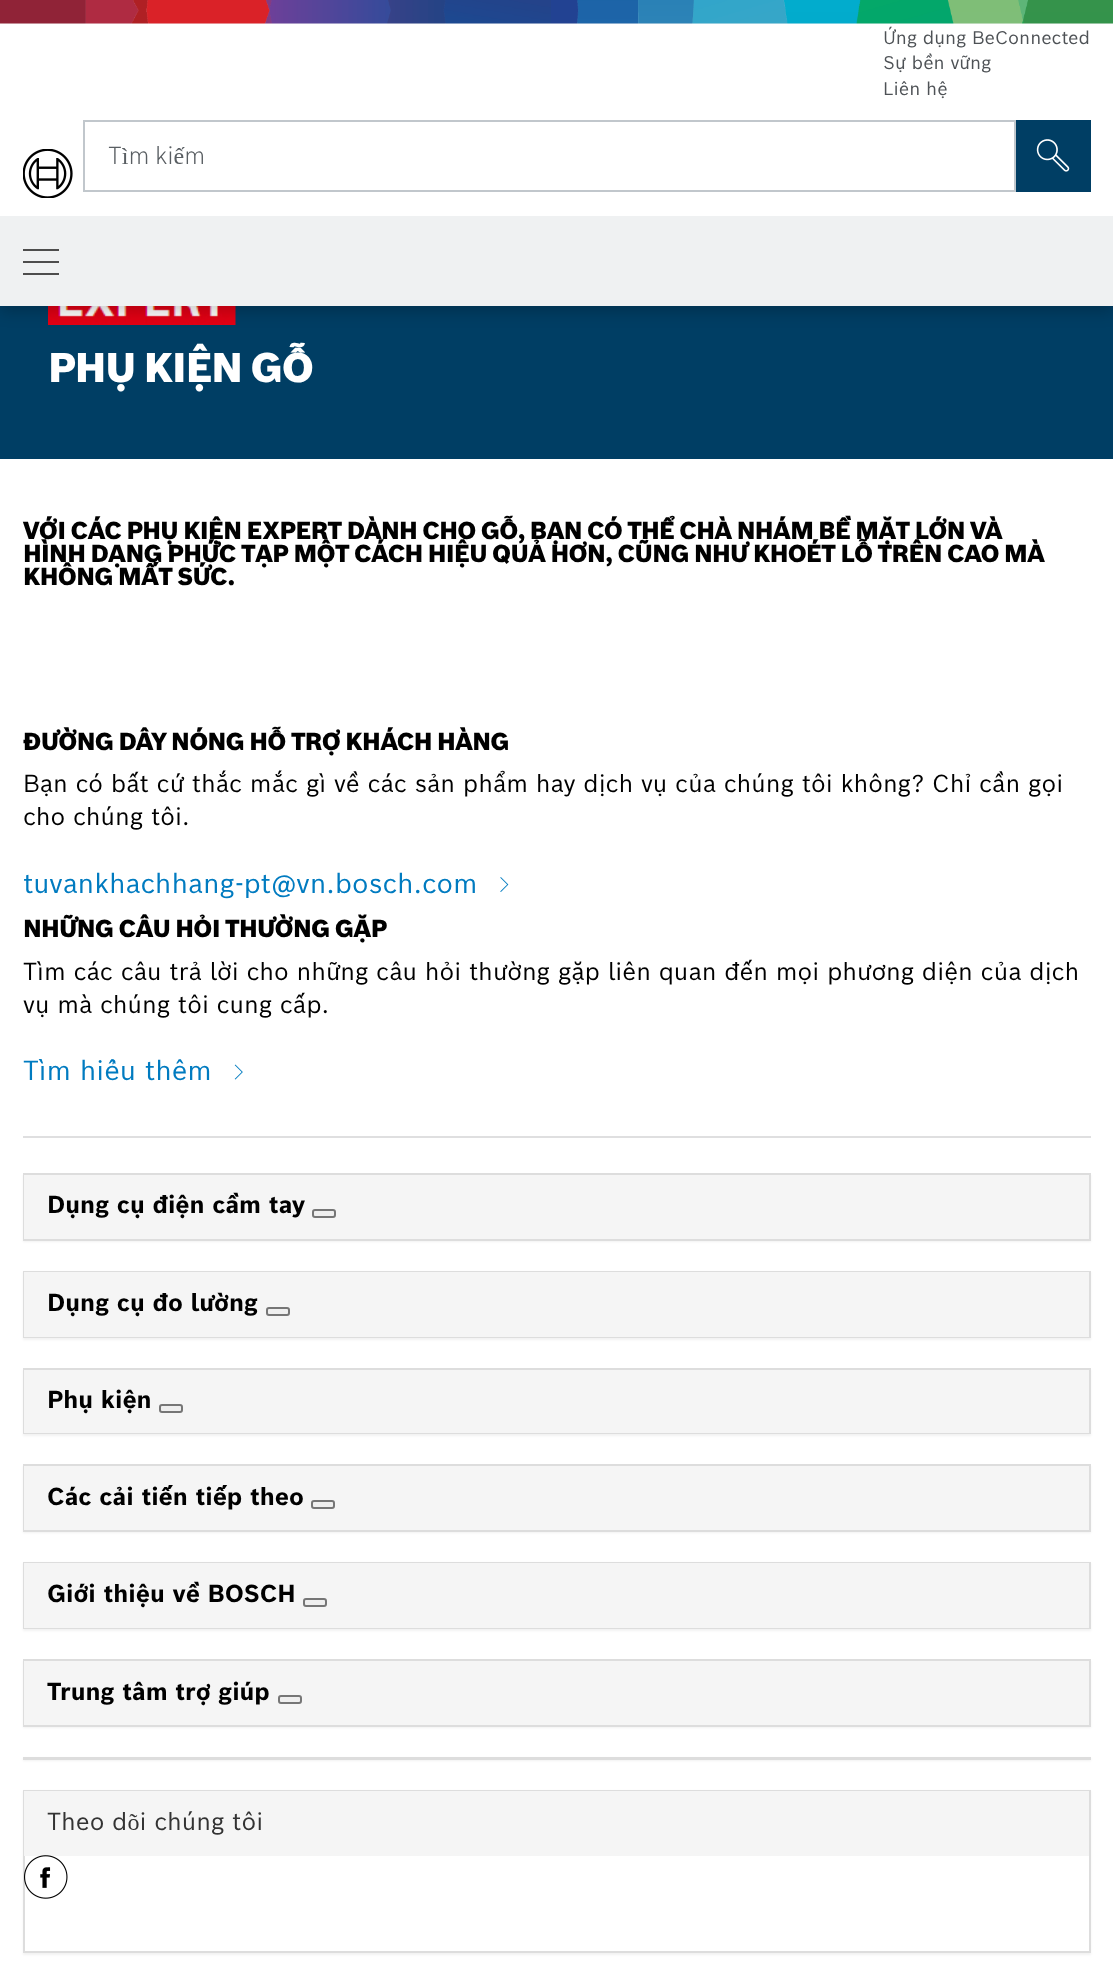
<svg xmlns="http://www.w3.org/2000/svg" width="1113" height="1977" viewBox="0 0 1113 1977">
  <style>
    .t1 { font: 18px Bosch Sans; fill: #4e5256; }
    .t2 { font: 300 24px Bosch Sans; fill: #595e62; }
    .t3 { font: 900 40.5px Bosch Sans; letter-spacing: -1.25px; fill: #fff; }
    .t4 { font: 900 24px Bosch Sans; letter-spacing: -0.72px; fill: #000; }
    .t5 { font: 24px Bosch Sans; fill: #000; }
    .t6 { font: 27px Bosch Sans; fill: #007bc0; }
    .t7 { font: bold 24px Bosch Sans; fill: #000; }
    .t8 { font: 24px Bosch Sans; fill: #333; }
  </style>
  <rect width="100%" height="100%" fill="#fff"/>
  <rect x="0" y="306" width="1113" height="153" fill="#003e64"/>
  <image x="48" y="306" width="188" height="19" href="images/4.png"/>
  <rect x="0" y="30" width="1113" height="282" fill="#00000033" filter="blur(7.5px)"/>
  <image x="0" y="0" width="1113" height="24" href="images/1.png"/>
  <rect x="0" y="24" width="1113" height="192" fill="#fff"/>
  <text x="883" y="44" class="t1">Ứng dụng BeConnected</text>
  <text x="883" y="69" class="t1">Sự bền vững</text>
  <text x="883" y="95" class="t1">Liên hệ</text>
  <image x="23" y="149" width="50" height="49" href="images/2.png"/>
  <rect x="84" y="121" width="931" height="70" fill="none" stroke="#c1c7cc" stroke-width="2"/>
  <text x="108" y="164" class="t2">Tìm kiếm</text>
  <rect x="1016" y="120" width="75" height="72" fill="#003e64"/>
  <image x="1036" y="139" width="34" height="33" href="images/3.png"/>
  <rect x="0" y="216" width="1113" height="90" fill="#eff1f2"/>
  <rect x="23" y="249" width="36" height="2" fill="#4d4d4d"/>
  <rect x="23" y="261" width="36" height="2" fill="#4d4d4d"/>
  <rect x="23" y="273" width="36" height="2" fill="#4d4d4d"/>
  <text x="48" y="382" class="t3">PHỤ KIỆN GỖ</text>
  <text x="23" y="539" class="t4">VỚI CÁC PHỤ KIỆN EXPERT DÀNH CHO GỖ, BẠN CÓ THỂ CHÀ NHÁM BỀ MẶT LỚN VÀ</text>
  <text x="23" y="562" class="t4">HÌNH DẠNG PHỨC TẠP MỘT CÁCH HIỆU QUẢ HƠN, CŨNG NHƯ KHOÉT LỖ TRÊN CAO MÀ</text>
  <text x="23" y="585" class="t4">KHÔNG MẤT SỨC.</text>
  <text x="23" y="750" class="t4">ĐƯỜNG DÂY NÓNG HỖ TRỢ KHÁCH HÀNG</text>
  <text x="23" y="792" class="t5">Bạn có bất cứ thắc mắc gì về các sản phẩm hay dịch vụ của chúng tôi không? Chỉ cần gọi</text>
  <text x="23" y="825" class="t5">cho chúng tôi.</text>
  <text x="23" y="893" class="t6">tuvankhachhang-pt@vn.bosch.com</text>
  <image x="500" y="877" width="9" height="15" href="images/5.png"/>
  <text x="23" y="937" class="t4">NHỮNG CÂU HỎI THƯỜNG GẶP</text>
  <text x="23" y="980" class="t5">Tìm các câu trả lời cho những câu hỏi thường gặp liên quan đến mọi phương diện của dịch</text>
  <text x="23" y="1013" class="t5">vụ mà chúng tôi cung cấp.</text>
  <text x="23" y="1080" class="t6">Tìm hiểu thêm</text>
  <image x="234" y="1064" width="9" height="16" href="images/6.png"/>
  <rect x="23" y="1136" width="1068" height="2" fill="#dfdfe0"/>
  <rect x="23" y="1175" width="1068" height="67" fill="#0000000d" filter="blur(1px)"/>
  <rect x="24" y="1174" width="1066" height="66" fill="none" stroke="#ddd" stroke-width="2"/>
  <rect x="24" y="1175" width="1065" height="64" fill="#f5f5f5"/>
  <text x="47" y="1213" class="t7">Dụng cụ điện cầm tay</text>
  <rect x="313" y="1210" width="22" height="7" rx="2" fill="#efefef" stroke="#767676" stroke-width="2"/>
  <rect x="23" y="1272" width="1068" height="68" fill="#0000000d" filter="blur(1px)"/>
  <rect x="24" y="1272" width="1066" height="65" fill="none" stroke="#ddd" stroke-width="2"/>
  <rect x="24" y="1272" width="1065" height="65" fill="#f5f5f5"/>
  <text x="47" y="1311" class="t7">Dụng cụ đo lường</text>
  <rect x="267" y="1308" width="22" height="7" rx="2" fill="#efefef" stroke="#767676" stroke-width="2"/>
  <rect x="23" y="1370" width="1068" height="66" fill="#0000000d" filter="blur(1px)"/>
  <rect x="24" y="1369" width="1066" height="64" fill="none" stroke="#ddd" stroke-width="2"/>
  <rect x="24" y="1370" width="1065" height="63" fill="#f5f5f5"/>
  <text x="47" y="1408" class="t7">Phụ kiện</text>
  <rect x="160" y="1405" width="22" height="7" rx="2" fill="#efefef" stroke="#767676" stroke-width="2"/>
  <rect x="23" y="1466" width="1068" height="67" fill="#0000000d" filter="blur(1px)"/>
  <rect x="24" y="1465" width="1066" height="66" fill="none" stroke="#ddd" stroke-width="2"/>
  <rect x="24" y="1466" width="1065" height="64" fill="#f5f5f5"/>
  <text x="47" y="1505" class="t7">Các cải tiến tiếp theo</text>
  <rect x="312" y="1501" width="22" height="7" rx="2" fill="#efefef" stroke="#767676" stroke-width="2"/>
  <rect x="23" y="1563" width="1068" height="68" fill="#0000000d" filter="blur(1px)"/>
  <rect x="24" y="1563" width="1066" height="65" fill="none" stroke="#ddd" stroke-width="2"/>
  <rect x="24" y="1563" width="1065" height="65" fill="#f5f5f5"/>
  <text x="47" y="1602" class="t7">Giới thiệu về BOSCH</text>
  <rect x="304" y="1599" width="22" height="7" rx="2" fill="#efefef" stroke="#767676" stroke-width="2"/>
  <rect x="23" y="1661" width="1068" height="67" fill="#0000000d" filter="blur(1px)"/>
  <rect x="24" y="1660" width="1066" height="66" fill="none" stroke="#ddd" stroke-width="2"/>
  <rect x="24" y="1661" width="1065" height="64" fill="#f5f5f5"/>
  <text x="47" y="1700" class="t7">Trung tâm trợ giúp</text>
  <rect x="279" y="1696" width="22" height="7" rx="2" fill="#efefef" stroke="#767676" stroke-width="2"/>
  <rect x="23" y="1758" width="1068" height="3" fill="#0000000d" filter="blur(1px)"/>
  <rect x="23" y="1757" width="1068" height="3" fill="#ddd"/>
  <rect x="23" y="1791" width="1068" height="164" fill="#0000000d" filter="blur(1px)"/>
  <rect x="25" y="1856" width="1064" height="95" fill="#fff"/>
  <rect x="24" y="1791" width="1066" height="161" fill="none" stroke="#ddd" stroke-width="2"/>
  <rect x="24" y="1791" width="1065" height="65" fill="#f5f5f5"/>
  <text x="47" y="1830" class="t8">Theo dõi chúng tôi</text>
  <image x="24" y="1855" width="44" height="44" href="images/7.png"/>
</svg>
